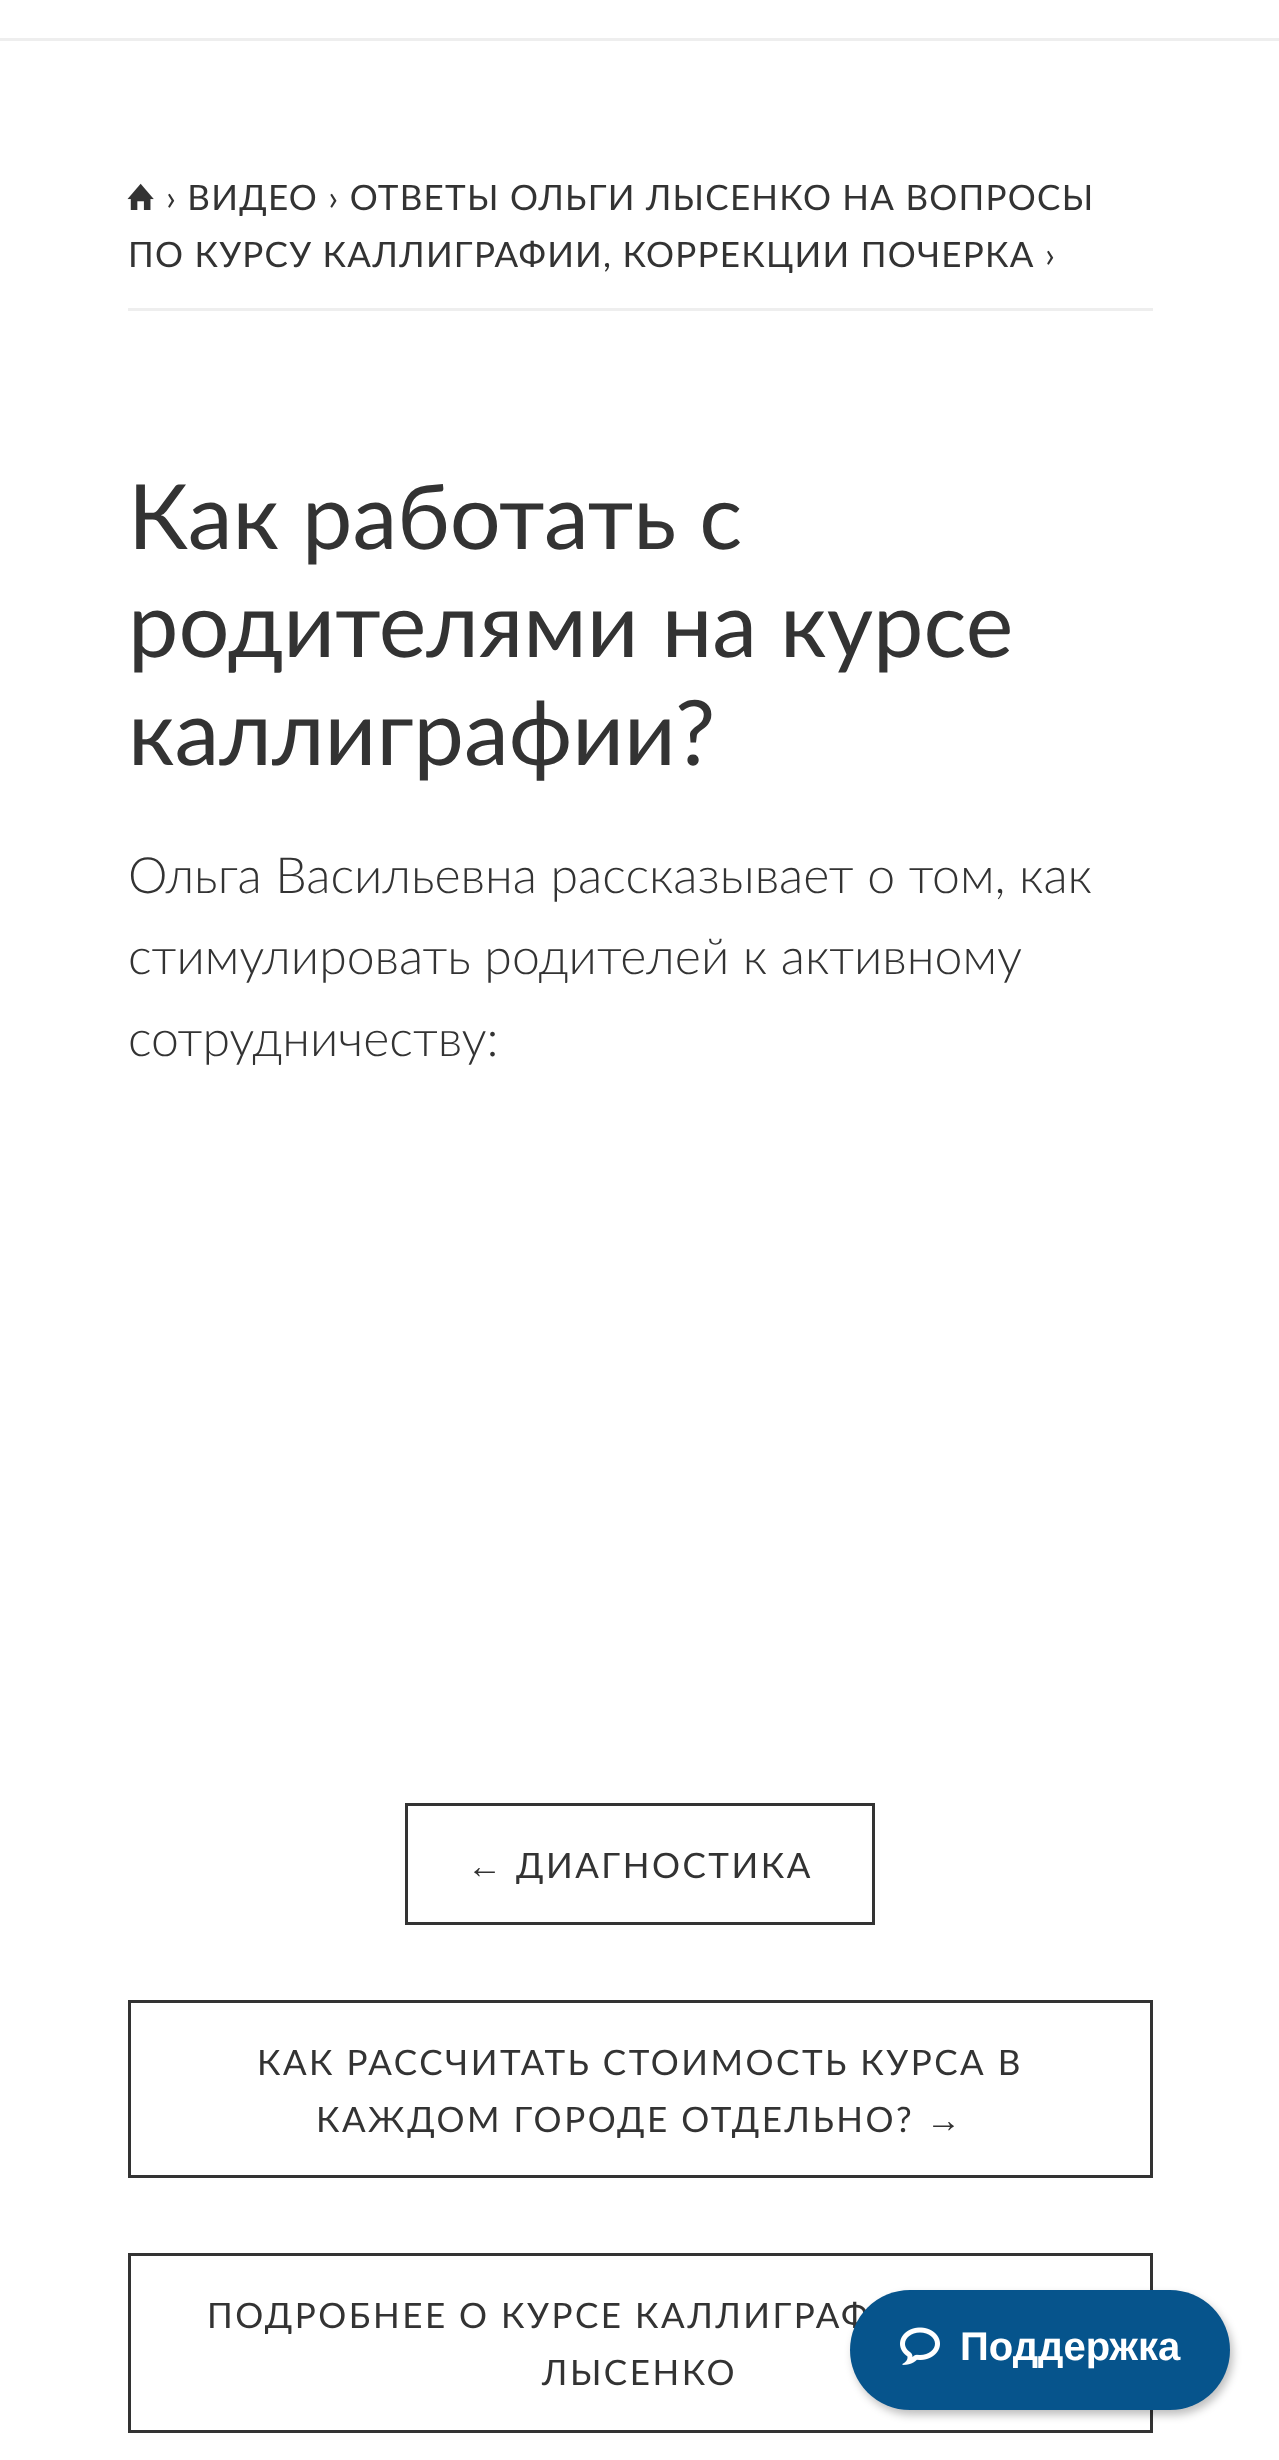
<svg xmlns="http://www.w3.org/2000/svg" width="1279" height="2460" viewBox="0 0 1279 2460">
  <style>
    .t1 { font: 35px Lato; letter-spacing: 1.25px; fill: #333; }
    .t2 { font: 90px Lato; fill: #333; }
    .t3 { font: 300 50px Lato; fill: #333; }
    .t4 { font: 35px Liberation Sans; letter-spacing: 2.5px; fill: #333; }
    .t5 { font: 35px Lato; letter-spacing: 2.5px; fill: #333; }
    .t6 { font: bold 40px Liberation Sans; fill: #fff; }
  </style>
  <rect width="100%" height="100%" fill="#fff"/>
  <rect x="0" y="38" width="1279" height="3" fill="#eee"/>
  <rect x="128" y="308" width="1025" height="3" fill="#eee"/>
  <image x="127" y="183" width="27" height="27" href="images/1.png"/>
  <text x="166" y="210" class="t1">› ВИДЕО › ОТВЕТЫ ОЛЬГИ ЛЫСЕНКО НА ВОПРОСЫ</text>
  <text x="128" y="267" class="t1">ПО КУРСУ КАЛЛИГРАФИИ, КОРРЕКЦИИ ПОЧЕРКА ›</text>
  <text x="128" y="549" class="t2">Как работать с</text>
  <text x="128" y="657" class="t2">родителями на курсе</text>
  <text x="128" y="765" class="t2">каллиграфии?</text>
  <text x="128" y="893" class="t3">Ольга Васильевна рассказывает о том, как</text>
  <text x="128" y="974" class="t3">стимулировать родителей к активному</text>
  <text x="128" y="1056" class="t3">сотрудничеству:</text>
  <rect x="406.5" y="1804.5" width="467" height="119" fill="none" stroke="#333" stroke-width="3"/>
  <text x="467" y="1878" class="t4">←</text>
  <text x="516" y="1878" class="t5">ДИАГНОСТИКА</text>
  <rect x="129.5" y="2001.5" width="1022" height="175" fill="none" stroke="#333" stroke-width="3"/>
  <text x="257" y="2075" class="t5">КАК РАССЧИТАТЬ СТОИМОСТЬ КУРСА В</text>
  <text x="316" y="2132" class="t5">КАЖДОМ ГОРОДЕ ОТДЕЛЬНО?</text>
  <text x="926" y="2132" class="t4">→</text>
  <rect x="129.5" y="2254.5" width="1022" height="177" fill="none" stroke="#333" stroke-width="3"/>
  <text x="207" y="2328" class="t5">ПОДРОБНЕЕ О КУРСЕ КАЛЛИГРАФ</text>
  <text x="542" y="2385" class="t5">ЛЫСЕНКО</text>
  <rect x="853" y="2295" width="380" height="120" rx="60" fill="#00000040" filter="blur(4px)"/>
  <rect x="850" y="2290" width="380" height="120" rx="60" fill="#06548c"/>
  <image x="900" y="2327" width="40" height="38" href="images/2.png"/>
  <text x="960" y="2360" class="t6">Поддержка</text>
</svg>
